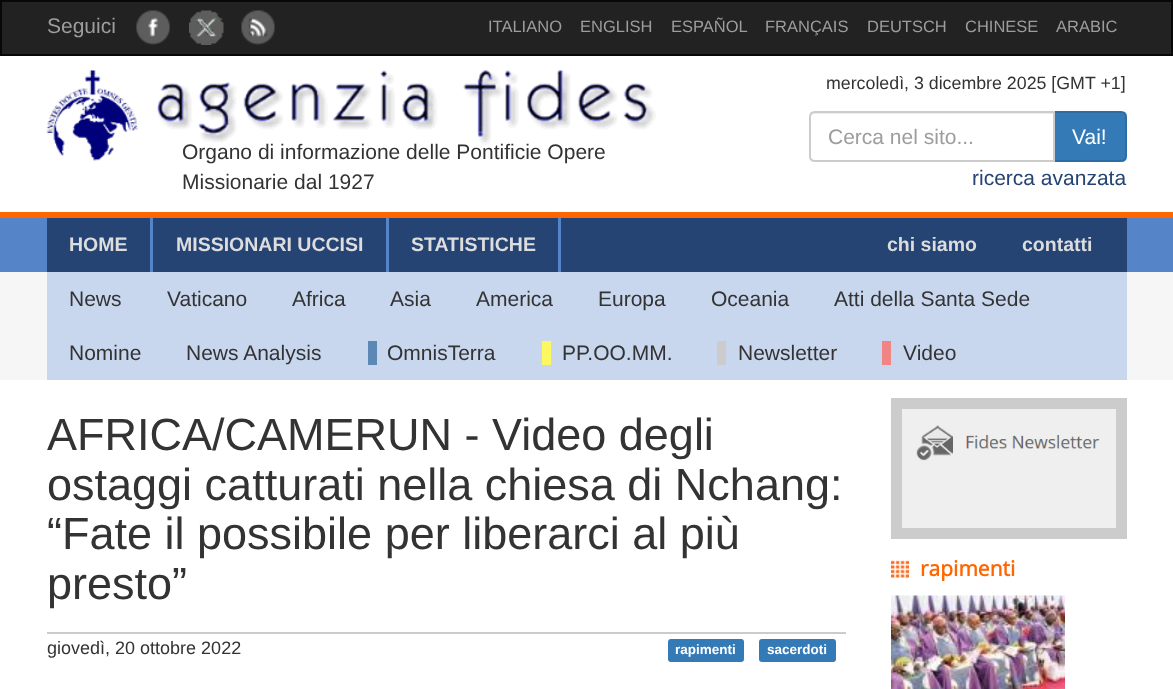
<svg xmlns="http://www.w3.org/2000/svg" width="1173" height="689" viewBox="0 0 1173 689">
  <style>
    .t1 { font: 21px Liberation Sans; fill: #9d9d9d; }
    .t2 { font: 16.5px Liberation Sans; fill: #9d9d9d; }
    .t3 { font: 21px Liberation Sans; fill: #333; }
    .t4 { font: 17.8px Liberation Sans; fill: #333; }
    .t5 { font: 21px Liberation Sans; fill: #fff; }
    .t6 { font: 21px Liberation Sans; fill: #254472; }
    .t7 { font: bold 19.5px Liberation Sans; fill: #ddd; }
    .t8 { font: 45px Liberation Sans; fill: #333; }
    .t9 { font: 18px Liberation Sans; fill: #333; }
    .t10 { font: bold 13.5px Liberation Sans; fill: #fff; }
    .t11 { font: bold 21px Open Sans; fill: #f60; }
  </style>
  <rect width="100%" height="100%" fill="#fff"/>
  <rect x="1" y="1" width="1171" height="54" fill="#222" stroke="#080808" stroke-width="2"/>
  <text x="47" y="33" class="t1">Seguici</text>
  <image x="136" y="10" width="34" height="35" href="images/1.png"/>
  <image x="189" y="10" width="35" height="35" href="images/2.png"/>
  <image x="241" y="10" width="34" height="35" href="images/3.png"/>
  <text x="488" y="32" class="t2">ITALIANO</text>
  <text x="580" y="32" class="t2">ENGLISH</text>
  <text x="671" y="32" class="t2">ESPAÑOL</text>
  <text x="765" y="32" class="t2">FRANÇAIS</text>
  <text x="867" y="32" class="t2">DEUTSCH</text>
  <text x="965" y="32" class="t2">CHINESE</text>
  <text x="1056" y="32" class="t2">ARABIC</text>
  <rect x="0" y="212" width="1173" height="6" fill="#f60"/>
  <image x="46" y="70" width="610" height="91" href="images/4.png"/>
  <text x="182" y="159" class="t3">Organo di informazione delle Pontificie Opere</text>
  <text x="182" y="189" class="t3">Missionarie dal 1927</text>
  <text x="826" y="89" class="t4">mercoledì, 3 dicembre 2025 [GMT +1]</text>
  <path d="M1054 112H1121C1124 112 1126 114 1126 117V156C1126 159 1124 161 1121 161H1054Z" fill="#337ab7" stroke="#2e6da4" stroke-width="2"/>
  <path d="M815 111H1055V162H815C811.5 162 809 159.5 809 156V117C809 113.5 811.5 111 815 111Z" fill="#fff"/>
  <path d="M814 114H1053V113H815C812 113 810 115 810 118C810 116 812 114 814 114Z" fill="#ececec"/>
  <path d="M815 112H1054V161H815C812 161 810 159 810 156V117C810 114 812 112 815 112Z" fill="none" stroke="#ccc" stroke-width="2"/>
  <text x="828" y="144" class="t1">Cerca nel sito...</text>
  <text x="1072" y="144" class="t5">Vai!</text>
  <text x="972" y="185" class="t6">ricerca avanzata</text>
  <rect x="0" y="272" width="1173" height="108" fill="#f6f6f6"/>
  <rect x="0" y="218" width="1173" height="54" fill="#5684c9"/>
  <rect x="47" y="218" width="1080" height="54" fill="#254473"/>
  <rect x="150" y="218" width="3" height="54" fill="#5684c9"/>
  <text x="69" y="251" class="t7">HOME</text>
  <rect x="386" y="218" width="3" height="54" fill="#5684c9"/>
  <text x="176" y="251" class="t7">MISSIONARI UCCISI</text>
  <rect x="558" y="218" width="3" height="54" fill="#5684c9"/>
  <text x="411" y="251" class="t7">STATISTICHE</text>
  <text x="887" y="251" class="t7">chi siamo</text>
  <text x="1022" y="251" class="t7">contatti</text>
  <rect x="47" y="272" width="1080" height="108" fill="#c8d7ee"/>
  <text x="69" y="306" class="t3">News</text>
  <text x="167" y="306" class="t3">Vaticano</text>
  <text x="292" y="306" class="t3">Africa</text>
  <text x="390" y="306" class="t3">Asia</text>
  <text x="476" y="306" class="t3">America</text>
  <text x="598" y="306" class="t3">Europa</text>
  <text x="711" y="306" class="t3">Oceania</text>
  <text x="834" y="306" class="t3">Atti della Santa Sede</text>
  <text x="69" y="360" class="t3">Nomine</text>
  <text x="186" y="360" class="t3">News Analysis</text>
  <rect x="368" y="341" width="9" height="24" fill="#5c88b5"/>
  <text x="387" y="360" class="t3">OmnisTerra</text>
  <rect x="542" y="341" width="9" height="24" fill="#fdf760"/>
  <text x="562" y="360" class="t3">PP.OO.MM.</text>
  <rect x="717" y="341" width="9" height="24" fill="#ccc"/>
  <text x="738" y="360" class="t3">Newsletter</text>
  <rect x="882" y="341" width="9" height="24" fill="#f18585"/>
  <text x="903" y="360" class="t3">Video</text>
  <rect x="47" y="632" width="799" height="2" fill="#ccc"/>
  <text x="47" y="450" class="t8">AFRICA/CAMERUN - Video degli</text>
  <text x="47" y="500" class="t8">ostaggi catturati nella chiesa di Nchang:</text>
  <text x="47" y="549" class="t8">“Fate il possibile per liberarci al più</text>
  <text x="47" y="599" class="t8">presto”</text>
  <text x="47" y="654" class="t9">giovedì, 20 ottobre 2022</text>
  <rect x="668" y="639" width="76" height="23" rx="3" fill="#337ab7"/>
  <text x="675" y="654" class="t10">rapimenti</text>
  <rect x="759" y="639" width="77" height="23" rx="3" fill="#337ab7"/>
  <text x="767" y="654" class="t10">sacerdoti</text>
  <rect x="896.5" y="403.5" width="225" height="130" fill="#efefef" stroke="#ccc" stroke-width="11"/>
  <image x="916" y="425" width="184" height="36" href="images/5.png"/>
  <image x="891" y="560" width="18" height="18" href="images/6.png"/>
  <text x="920" y="576" class="t11">rapimenti</text>
  <image x="891" y="595" width="174" height="94" href="images/7.png"/>
</svg>
